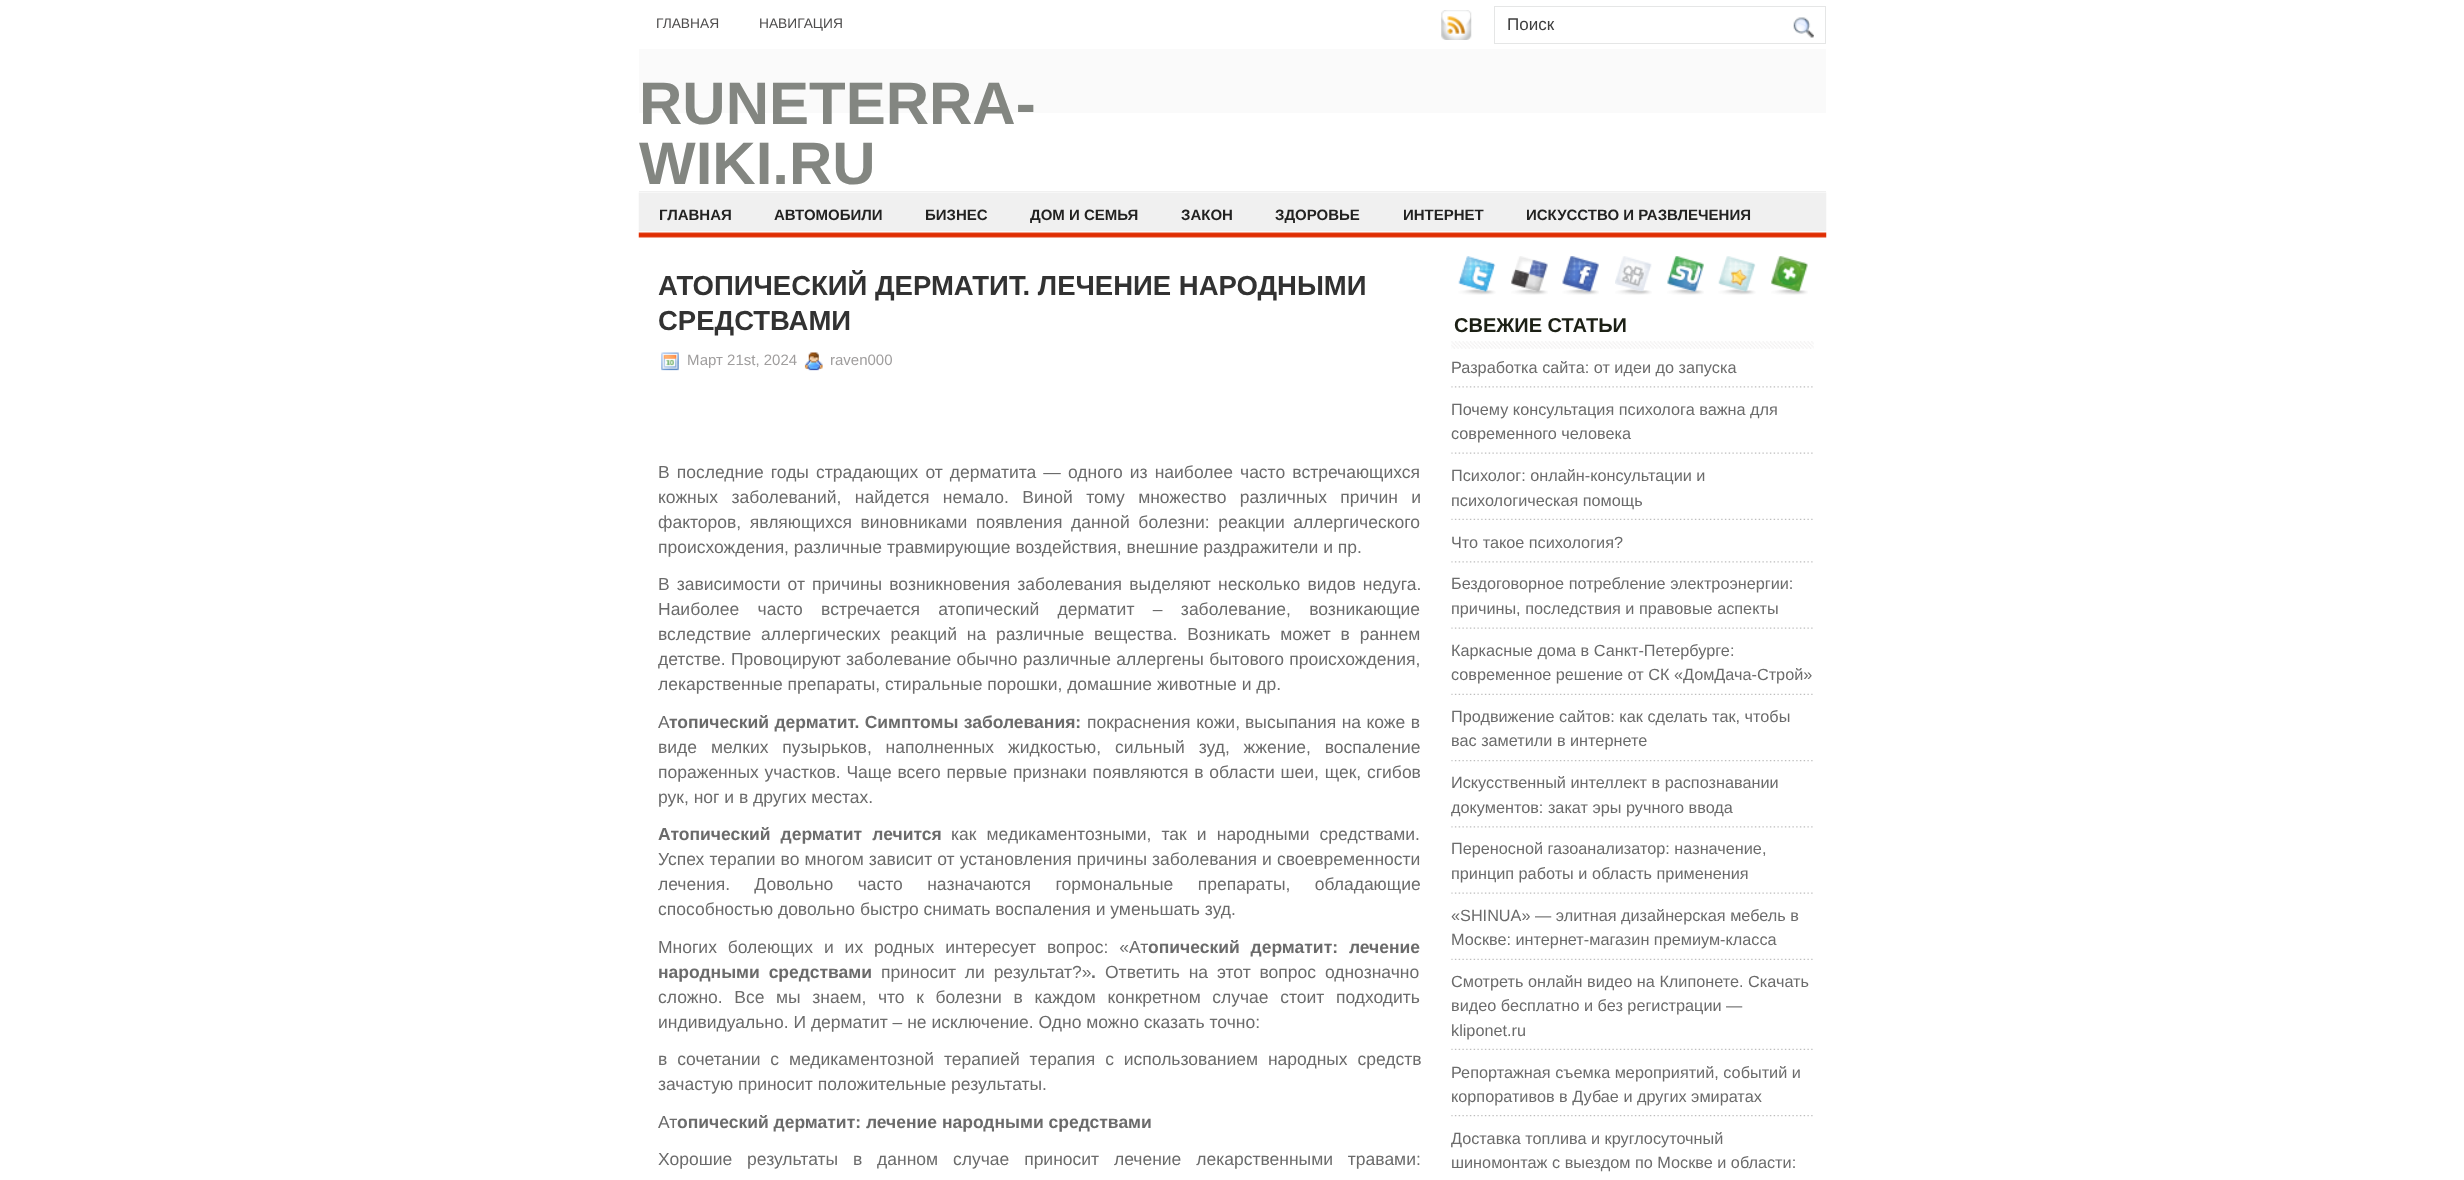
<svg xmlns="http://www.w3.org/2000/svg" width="2464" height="1180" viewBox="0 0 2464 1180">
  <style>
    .t1 { font: 13.75px Liberation Sans; fill: #4e4d4d; }
    .t2 { font: 17px Liberation Sans; fill: #3f3f3f; }
    .t3 { font: bold 60px Liberation Sans; fill: #838681; }
    .t4 { font: bold 15px Liberation Sans; fill: #222221; }
    .t5 { font: bold 27.5px Liberation Sans; fill: #323232; }
    .t6 { font: 15px Liberation Sans; fill: #9f9d9d; }
    .t7 { font: 17.5px Liberation Sans; fill: #6b6b6b; }
    .t8 { font: bold 17.5px Liberation Sans; fill: #6b6b6b; }
    .t9 { font: bold 20px Liberation Sans; fill: #1c2015; }
    .t10 { font: 16.25px Liberation Sans; fill: #6b6b6b; }
  </style>
  <rect width="100%" height="100%" fill="#fff"/>
  <text x="656" y="28" class="t1">ГЛАВНАЯ</text>
  <text x="759" y="28" class="t1">НАВИГАЦИЯ</text>
  <image x="1441" y="10" width="31" height="30" href="images/1.png"/>
  <rect x="1494.5" y="6.5" width="331" height="37" fill="none" stroke="#e5e6e6"/>
  <text x="1507" y="30" class="t2">Поиск</text>
  <image x="1793" y="17" width="21" height="21" href="images/2.png"/>
  <rect x="639" y="49" width="1187" height="64" fill="#fafafa"/>
  <text x="639" y="124" class="t3">RUNETERRA-</text>
  <text x="639" y="184" class="t3">WIKI.RU</text>
  <image x="638" y="192" width="1189" height="46" href="images/3.png"/>
  <rect x="639" y="191" width="1187" height="1" fill="#f0f0f0"/>
  <text x="659" y="220" class="t4">ГЛАВНАЯ</text>
  <text x="774" y="220" class="t4">АВТОМОБИЛИ</text>
  <text x="925" y="220" class="t4">БИЗНЕС</text>
  <text x="1030" y="220" class="t4">ДОМ И СЕМЬЯ</text>
  <text x="1181" y="220" class="t4">ЗАКОН</text>
  <text x="1275" y="220" class="t4">ЗДОРОВЬЕ</text>
  <text x="1403" y="220" class="t4">ИНТЕРНЕТ</text>
  <text x="1526" y="220" class="t4">ИСКУССТВО И РАЗВЛЕЧЕНИЯ</text>
  <text x="658" y="295" class="t5">АТОПИЧЕСКИЙ ДЕРМАТИТ. ЛЕЧЕНИЕ НАРОДНЫМИ</text>
  <text x="658" y="330" class="t5">СРЕДСТВАМИ</text>
  <image x="661" y="352" width="18" height="19" href="images/4.png"/>
  <text x="687" y="365" class="t6">Март 21st, 2024</text>
  <image x="804" y="352" width="19" height="19" href="images/5.png"/>
  <text x="830" y="365" class="t6">raven000</text>
  <text x="658" y="478" word-spacing="2.25" class="t7">В последние годы страдающих от дерматита — одного из наиболее часто встречающихся</text>
  <text x="658" y="503" word-spacing="8.5" class="t7">кожных заболеваний, найдется немало. Виной тому множество различных причин и</text>
  <text x="658" y="528" word-spacing="3.75" class="t7">факторов, являющихся виновниками появления данной болезни: реакции аллергического</text>
  <text x="658" y="553" class="t7">происхождения, различные травмирующие воздействия, внешние раздражители и пр.</text>
  <text x="658" y="590" word-spacing="2.25" class="t7">В зависимости от причины возникновения заболевания выделяют несколько видов недуга.</text>
  <text x="658" y="615" word-spacing="13.5" class="t7">Наиболее часто встречается атопический дерматит – заболевание, возникающие</text>
  <text x="658" y="640" word-spacing="5" class="t7">вследствие аллергических реакций на различные вещества. Возникать может в раннем</text>
  <text x="658" y="665" word-spacing="0.5" class="t7">детстве. Провоцируют заболевание обычно различные аллергены бытового происхождения,</text>
  <text x="658" y="690" class="t7">лекарственные препараты, стиральные порошки, домашние животные и др.</text>
  <text x="658" y="728" class="t7">А</text>
  <text x="669" y="728" word-spacing="0.5" class="t8">топический дерматит. Симптомы заболевания:</text>
  <text x="1087" y="728" word-spacing="1" class="t7">покраснения кожи,</text>
  <text x="1245" y="728" word-spacing="0.5" class="t7">высыпания на коже в</text>
  <text x="658" y="753" word-spacing="9" class="t7">виде мелких пузырьков, наполненных жидкостью, сильный зуд, жжение, воспаление</text>
  <text x="658" y="778" word-spacing="0.9" class="t7">пораженных участков. Чаще всего первые признаки появляются в области шеи, щек, сгибов</text>
  <text x="658" y="803" class="t7">рук, ног и в других местах.</text>
  <text x="658" y="840" word-spacing="5.25" class="t8">Атопический дерматит лечится</text>
  <text x="951" y="840" word-spacing="5.25" class="t7">как медикаментозными, так и народными средствами.</text>
  <text x="658" y="865" word-spacing="0.25" class="t7">Успех терапии во многом зависит от установления причины заболевания и своевременности</text>
  <text x="658" y="890" word-spacing="19.5" class="t7">лечения. Довольно часто назначаются гормональные препараты, обладающие</text>
  <text x="658" y="915" class="t7">способностью довольно быстро снимать воспаления и уменьшать зуд.</text>
  <text x="658" y="953" word-spacing="6" class="t7">Многих болеющих и их родных интересует вопрос: «Ат</text>
  <text x="1148" y="953" word-spacing="6" class="t8">опический дерматит: лечение</text>
  <text x="658" y="978" word-spacing="4" class="t8">народными средствами</text>
  <text x="881" y="978" word-spacing="4" class="t7">приносит ли результат?»</text>
  <text x="1091" y="978" class="t8">.</text>
  <text x="1105" y="978" word-spacing="4" class="t7">Ответить на этот вопрос однозначно</text>
  <text x="658" y="1003" word-spacing="6.75" class="t7">сложно. Все мы знаем, что к болезни в каждом конкретном случае стоит подходить</text>
  <text x="658" y="1028" class="t7">индивидуально. И дерматит – не исключение. Одно можно сказать точно:</text>
  <text x="658" y="1065" word-spacing="5" class="t7">в сочетании с медикаментозной терапией терапия с использованием народных средств</text>
  <text x="658" y="1090" class="t7">зачастую приносит положительные результаты.</text>
  <text x="658" y="1128" class="t7">Ат</text>
  <text x="677" y="1128" class="t8">опический дерматит: лечение народными средствами</text>
  <text x="658" y="1165" word-spacing="10" class="t7">Хорошие результаты в данном случае приносит лечение лекарственными травами:</text>
  <image x="1458" y="256" width="38" height="39" href="images/6.png"/>
  <image x="1511" y="256" width="37" height="39" href="images/7.png"/>
  <image x="1562" y="256" width="37" height="39" href="images/8.png"/>
  <image x="1615" y="256" width="37" height="39" href="images/9.png"/>
  <image x="1667" y="256" width="37" height="39" href="images/10.png"/>
  <image x="1718" y="256" width="38" height="39" href="images/11.png"/>
  <image x="1771" y="256" width="37" height="39" href="images/12.png"/>
  <image x="1451" y="341" width="363" height="8" href="images/13.png"/>
  <text x="1454" y="332" class="t9">СВЕЖИЕ СТАТЬИ</text>
  <image x="1451" y="386" width="362" height="2" href="images/14.png"/>
  <text x="1451" y="373" class="t10">Разработка сайта: от идеи до запуска</text>
  <image x="1451" y="452" width="362" height="2" href="images/15.png"/>
  <text x="1451" y="415" class="t10">Почему консультация психолога важна для</text>
  <text x="1451" y="439" class="t10">современного человека</text>
  <image x="1451" y="518" width="362" height="2" href="images/16.png"/>
  <text x="1451" y="481" class="t10">Психолог: онлайн-консультации и</text>
  <text x="1451" y="506" class="t10">психологическая помощь</text>
  <image x="1451" y="561" width="362" height="2" href="images/14.png"/>
  <text x="1451" y="548" class="t10">Что такое психология?</text>
  <image x="1451" y="627" width="362" height="2" href="images/15.png"/>
  <text x="1451" y="589" class="t10">Бездоговорное потребление электроэнергии:</text>
  <text x="1451" y="614" class="t10">причины, последствия и правовые аспекты</text>
  <image x="1451" y="693" width="362" height="2" href="images/16.png"/>
  <text x="1451" y="656" class="t10">Каркасные дома в Санкт-Петербурге:</text>
  <text x="1451" y="680" class="t10">современное решение от СК «ДомДача-Строй»</text>
  <image x="1451" y="760" width="362" height="2" href="images/17.png"/>
  <text x="1451" y="722" class="t10">Продвижение сайтов: как сделать так, чтобы</text>
  <text x="1451" y="746" class="t10">вас заметили в интернете</text>
  <image x="1451" y="826" width="362" height="2" href="images/14.png"/>
  <text x="1451" y="788" class="t10">Искусственный интеллект в распознавании</text>
  <text x="1451" y="813" class="t10">документов: закат эры ручного ввода</text>
  <image x="1451" y="892" width="362" height="2" href="images/15.png"/>
  <text x="1451" y="854" class="t10">Переносной газоанализатор: назначение,</text>
  <text x="1451" y="879" class="t10">принцип работы и область применения</text>
  <image x="1451" y="958" width="362" height="2" href="images/16.png"/>
  <text x="1451" y="921" class="t10">«SHINUA» — элитная дизайнерская мебель в</text>
  <text x="1451" y="945" class="t10">Москве: интернет-магазин премиум-класса</text>
  <image x="1451" y="1048" width="362" height="2" href="images/16.png"/>
  <text x="1451" y="987" class="t10">Смотреть онлайн видео на Клипонете. Скачать</text>
  <text x="1451" y="1011" class="t10">видео бесплатно и без регистрации —</text>
  <text x="1451" y="1036" class="t10">kliponet.ru</text>
  <image x="1451" y="1115" width="362" height="2" href="images/17.png"/>
  <text x="1451" y="1078" class="t10">Репортажная съемка мероприятий, событий и</text>
  <text x="1451" y="1102" class="t10">корпоративов в Дубае и других эмиратах</text>
  <text x="1451" y="1144" class="t10">Доставка топлива и круглосуточный</text>
  <text x="1451" y="1168" class="t10">шиномонтаж с выездом по Москве и области:</text>
</svg>
